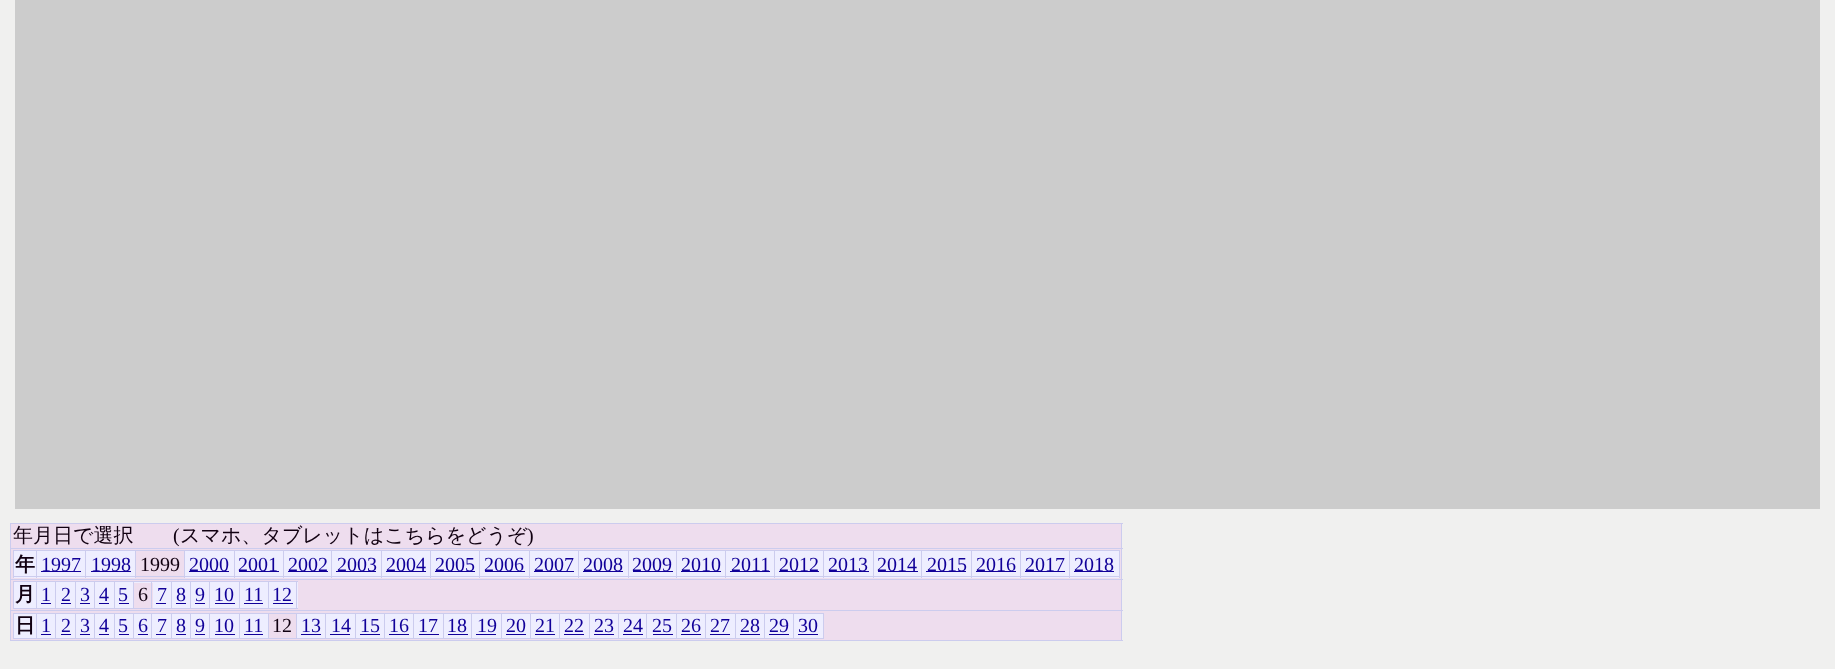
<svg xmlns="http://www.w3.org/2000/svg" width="1835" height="669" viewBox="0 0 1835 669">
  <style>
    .t1 { font: 500 20px WenQuanYi Zen Hei; fill: #101; }
    .t2 { font: 20px Liberation Serif; fill: #101; }
    .t3 { font: bold 20px WenQuanYi Zen Hei; fill: #101; }
    .t4 { font: 20px Liberation Serif; fill: #109; }
  </style>
  <rect width="100%" height="100%" fill="#f0f0ef"/>
  <rect x="15" y="0" width="1805" height="509" fill="#ccc"/>
  <rect x="10" y="523" width="1113" height="1" fill="#cce"/>
  <rect x="1121" y="523" width="1" height="118" fill="#cce"/>
  <rect x="10" y="640" width="1113" height="1" fill="#cce"/>
  <rect x="10" y="523" width="1" height="118" fill="#cce"/>
  <rect x="11" y="524" width="1110" height="24" fill="#ede"/>
  <text x="13" y="542" class="t1">年月日で選択</text>
  <text x="173" y="542" class="t2">(</text>
  <text x="180" y="542" class="t1">スマホ、タブレットはこちらをどうぞ</text>
  <text x="527" y="542" class="t2">)</text>
  <rect x="11" y="549" width="1110" height="30" fill="#ede"/>
  <rect x="10" y="548" width="1113" height="1" fill="#cce"/>
  <rect x="14" y="551" width="1105" height="27" fill="#eef"/>
  <rect x="13" y="550" width="1107" height="1" fill="#cce"/>
  <rect x="1119" y="550" width="1" height="28" fill="#cce"/>
  <rect x="136" y="551" width="48" height="27" fill="#ede"/>
  <rect x="13" y="576" width="1107" height="1" fill="#cce"/>
  <rect x="13" y="550" width="1" height="28" fill="#cce"/>
  <text x="15" y="571" class="t3">年</text>
  <rect x="36" y="550" width="1" height="28" fill="#cce"/>
  <rect x="41" y="571" width="40" height="1" fill="#109"/>
  <text x="41" y="571" class="t4">1997</text>
  <rect x="85" y="550" width="1" height="28" fill="#cce"/>
  <rect x="91" y="571" width="40" height="1" fill="#109"/>
  <text x="91" y="571" class="t4">1998</text>
  <rect x="135" y="550" width="1" height="28" fill="#cce"/>
  <text x="140" y="571" class="t2">1999</text>
  <rect x="184" y="550" width="1" height="28" fill="#cce"/>
  <rect x="189" y="571" width="40" height="1" fill="#109"/>
  <text x="189" y="571" class="t4">2000</text>
  <rect x="234" y="550" width="1" height="28" fill="#cce"/>
  <rect x="239" y="571" width="40" height="1" fill="#109"/>
  <text x="238" y="571" class="t4">2001</text>
  <rect x="283" y="550" width="1" height="28" fill="#cce"/>
  <rect x="288" y="571" width="40" height="1" fill="#109"/>
  <text x="288" y="571" class="t4">2002</text>
  <rect x="331" y="550" width="1" height="28" fill="#cce"/>
  <rect x="336" y="571" width="40" height="1" fill="#109"/>
  <text x="337" y="571" class="t4">2003</text>
  <rect x="381" y="550" width="1" height="28" fill="#cce"/>
  <rect x="386" y="571" width="40" height="1" fill="#109"/>
  <text x="386" y="571" class="t4">2004</text>
  <rect x="430" y="550" width="1" height="28" fill="#cce"/>
  <rect x="435" y="571" width="40" height="1" fill="#109"/>
  <text x="435" y="571" class="t4">2005</text>
  <rect x="479" y="550" width="1" height="28" fill="#cce"/>
  <rect x="485" y="571" width="40" height="1" fill="#109"/>
  <text x="484" y="571" class="t4">2006</text>
  <rect x="529" y="550" width="1" height="28" fill="#cce"/>
  <rect x="534" y="571" width="40" height="1" fill="#109"/>
  <text x="534" y="571" class="t4">2007</text>
  <rect x="578" y="550" width="1" height="28" fill="#cce"/>
  <rect x="583" y="571" width="40" height="1" fill="#109"/>
  <text x="583" y="571" class="t4">2008</text>
  <rect x="628" y="550" width="1" height="28" fill="#cce"/>
  <rect x="633" y="571" width="40" height="1" fill="#109"/>
  <text x="632" y="571" class="t4">2009</text>
  <rect x="676" y="550" width="1" height="28" fill="#cce"/>
  <rect x="681" y="571" width="40" height="1" fill="#109"/>
  <text x="681" y="571" class="t4">2010</text>
  <rect x="725" y="550" width="1" height="28" fill="#cce"/>
  <rect x="730" y="571" width="40" height="1" fill="#109"/>
  <text x="731" y="571" class="t4">2011</text>
  <rect x="774" y="550" width="1" height="28" fill="#cce"/>
  <rect x="779" y="571" width="40" height="1" fill="#109"/>
  <text x="779" y="571" class="t4">2012</text>
  <rect x="823" y="550" width="1" height="28" fill="#cce"/>
  <rect x="829" y="571" width="40" height="1" fill="#109"/>
  <text x="828" y="571" class="t4">2013</text>
  <rect x="873" y="550" width="1" height="28" fill="#cce"/>
  <rect x="878" y="571" width="40" height="1" fill="#109"/>
  <text x="877" y="571" class="t4">2014</text>
  <rect x="921" y="550" width="1" height="28" fill="#cce"/>
  <rect x="926" y="571" width="40" height="1" fill="#109"/>
  <text x="927" y="571" class="t4">2015</text>
  <rect x="971" y="550" width="1" height="28" fill="#cce"/>
  <rect x="976" y="571" width="40" height="1" fill="#109"/>
  <text x="976" y="571" class="t4">2016</text>
  <rect x="1020" y="550" width="1" height="28" fill="#cce"/>
  <rect x="1025" y="571" width="40" height="1" fill="#109"/>
  <text x="1025" y="571" class="t4">2017</text>
  <rect x="1069" y="550" width="1" height="28" fill="#cce"/>
  <rect x="1074" y="571" width="40" height="1" fill="#109"/>
  <text x="1074" y="571" class="t4">2018</text>
  <rect x="11" y="580" width="1110" height="30" fill="#ede"/>
  <rect x="10" y="579" width="1113" height="1" fill="#cce"/>
  <rect x="14" y="582" width="284" height="26" fill="#eef"/>
  <rect x="13" y="581" width="285" height="1" fill="#cce"/>
  <rect x="296" y="581" width="1" height="28" fill="#cce"/>
  <rect x="13" y="608" width="285" height="1" fill="#cce"/>
  <rect x="13" y="581" width="1" height="28" fill="#cce"/>
  <text x="15" y="601" class="t3">月</text>
  <rect x="36" y="581" width="1" height="28" fill="#cce"/>
  <text x="41" y="601" class="t4">1</text>
  <rect x="41" y="603" width="10" height="1" fill="#109"/>
  <rect x="55" y="581" width="1" height="28" fill="#cce"/>
  <text x="61" y="601" class="t4">2</text>
  <rect x="61" y="603" width="10" height="1" fill="#109"/>
  <rect x="75" y="581" width="1" height="28" fill="#cce"/>
  <text x="80" y="601" class="t4">3</text>
  <rect x="80" y="603" width="10" height="1" fill="#109"/>
  <rect x="94" y="581" width="1" height="28" fill="#cce"/>
  <text x="99" y="601" class="t4">4</text>
  <rect x="99" y="603" width="10" height="1" fill="#109"/>
  <rect x="114" y="581" width="1" height="28" fill="#cce"/>
  <text x="118" y="601" class="t4">5</text>
  <rect x="119" y="603" width="10" height="1" fill="#109"/>
  <rect x="134" y="583" width="19" height="25" fill="#ede"/>
  <rect x="133" y="581" width="1" height="28" fill="#cce"/>
  <text x="138" y="601" class="t2">6</text>
  <rect x="151" y="581" width="1" height="28" fill="#cce"/>
  <text x="157" y="601" class="t4">7</text>
  <rect x="156" y="603" width="10" height="1" fill="#109"/>
  <rect x="171" y="581" width="1" height="28" fill="#cce"/>
  <text x="176" y="601" class="t4">8</text>
  <rect x="176" y="603" width="10" height="1" fill="#109"/>
  <rect x="190" y="581" width="1" height="28" fill="#cce"/>
  <text x="195" y="601" class="t4">9</text>
  <rect x="195" y="603" width="10" height="1" fill="#109"/>
  <rect x="209" y="581" width="1" height="28" fill="#cce"/>
  <text x="214" y="601" class="t4">10</text>
  <rect x="215" y="603" width="20" height="1" fill="#109"/>
  <rect x="239" y="581" width="1" height="28" fill="#cce"/>
  <text x="244" y="601" class="t4">11</text>
  <rect x="244" y="603" width="19" height="1" fill="#109"/>
  <rect x="268" y="581" width="1" height="28" fill="#cce"/>
  <text x="272" y="601" class="t4">12</text>
  <rect x="273" y="603" width="20" height="1" fill="#109"/>
  <rect x="11" y="611" width="1110" height="29" fill="#ede"/>
  <rect x="10" y="610" width="1113" height="1" fill="#cce"/>
  <rect x="14" y="614" width="809" height="24" fill="#eef"/>
  <rect x="13" y="613" width="811" height="1" fill="#cce"/>
  <rect x="823" y="613" width="1" height="26" fill="#cce"/>
  <rect x="13" y="638" width="811" height="1" fill="#cce"/>
  <rect x="13" y="613" width="1" height="26" fill="#cce"/>
  <text x="15" y="632" class="t3">日</text>
  <rect x="36" y="613" width="1" height="26" fill="#cce"/>
  <text x="41" y="632" class="t4">1</text>
  <rect x="41" y="634" width="10" height="1" fill="#109"/>
  <rect x="55" y="613" width="1" height="26" fill="#cce"/>
  <text x="61" y="632" class="t4">2</text>
  <rect x="61" y="634" width="10" height="1" fill="#109"/>
  <rect x="75" y="613" width="1" height="26" fill="#cce"/>
  <text x="80" y="632" class="t4">3</text>
  <rect x="80" y="634" width="10" height="1" fill="#109"/>
  <rect x="94" y="613" width="1" height="26" fill="#cce"/>
  <text x="99" y="632" class="t4">4</text>
  <rect x="99" y="634" width="10" height="1" fill="#109"/>
  <rect x="114" y="613" width="1" height="26" fill="#cce"/>
  <text x="118" y="632" class="t4">5</text>
  <rect x="119" y="634" width="10" height="1" fill="#109"/>
  <rect x="133" y="613" width="1" height="26" fill="#cce"/>
  <text x="138" y="632" class="t4">6</text>
  <rect x="138" y="634" width="10" height="1" fill="#109"/>
  <rect x="151" y="613" width="1" height="26" fill="#cce"/>
  <text x="157" y="632" class="t4">7</text>
  <rect x="156" y="634" width="10" height="1" fill="#109"/>
  <rect x="171" y="613" width="1" height="26" fill="#cce"/>
  <text x="176" y="632" class="t4">8</text>
  <rect x="176" y="634" width="10" height="1" fill="#109"/>
  <rect x="190" y="613" width="1" height="26" fill="#cce"/>
  <text x="195" y="632" class="t4">9</text>
  <rect x="195" y="634" width="10" height="1" fill="#109"/>
  <rect x="209" y="613" width="1" height="26" fill="#cce"/>
  <text x="214" y="632" class="t4">10</text>
  <rect x="215" y="634" width="20" height="1" fill="#109"/>
  <rect x="239" y="613" width="1" height="26" fill="#cce"/>
  <text x="244" y="632" class="t4">11</text>
  <rect x="244" y="634" width="19" height="1" fill="#109"/>
  <rect x="269" y="614" width="27" height="24" fill="#ede"/>
  <rect x="268" y="613" width="1" height="26" fill="#cce"/>
  <text x="272" y="632" class="t2">12</text>
  <rect x="296" y="613" width="1" height="26" fill="#cce"/>
  <text x="301" y="632" class="t4">13</text>
  <rect x="301" y="634" width="20" height="1" fill="#109"/>
  <rect x="325" y="613" width="1" height="26" fill="#cce"/>
  <text x="331" y="632" class="t4">14</text>
  <rect x="330" y="634" width="20" height="1" fill="#109"/>
  <rect x="355" y="613" width="1" height="26" fill="#cce"/>
  <text x="360" y="632" class="t4">15</text>
  <rect x="360" y="634" width="20" height="1" fill="#109"/>
  <rect x="384" y="613" width="1" height="26" fill="#cce"/>
  <text x="389" y="632" class="t4">16</text>
  <rect x="389" y="634" width="20" height="1" fill="#109"/>
  <rect x="413" y="613" width="1" height="26" fill="#cce"/>
  <text x="418" y="632" class="t4">17</text>
  <rect x="419" y="634" width="20" height="1" fill="#109"/>
  <rect x="443" y="613" width="1" height="26" fill="#cce"/>
  <text x="447" y="632" class="t4">18</text>
  <rect x="448" y="634" width="20" height="1" fill="#109"/>
  <rect x="471" y="613" width="1" height="26" fill="#cce"/>
  <text x="477" y="632" class="t4">19</text>
  <rect x="476" y="634" width="20" height="1" fill="#109"/>
  <rect x="501" y="613" width="1" height="26" fill="#cce"/>
  <text x="506" y="632" class="t4">20</text>
  <rect x="506" y="634" width="20" height="1" fill="#109"/>
  <rect x="530" y="613" width="1" height="26" fill="#cce"/>
  <text x="535" y="632" class="t4">21</text>
  <rect x="535" y="634" width="20" height="1" fill="#109"/>
  <rect x="559" y="613" width="1" height="26" fill="#cce"/>
  <text x="564" y="632" class="t4">22</text>
  <rect x="564" y="634" width="20" height="1" fill="#109"/>
  <rect x="589" y="613" width="1" height="26" fill="#cce"/>
  <text x="594" y="632" class="t4">23</text>
  <rect x="594" y="634" width="20" height="1" fill="#109"/>
  <rect x="618" y="613" width="1" height="26" fill="#cce"/>
  <text x="623" y="632" class="t4">24</text>
  <rect x="623" y="634" width="20" height="1" fill="#109"/>
  <rect x="646" y="613" width="1" height="26" fill="#cce"/>
  <text x="652" y="632" class="t4">25</text>
  <rect x="653" y="634" width="20" height="1" fill="#109"/>
  <rect x="676" y="613" width="1" height="26" fill="#cce"/>
  <text x="681" y="632" class="t4">26</text>
  <rect x="681" y="634" width="20" height="1" fill="#109"/>
  <rect x="705" y="613" width="1" height="26" fill="#cce"/>
  <text x="710" y="632" class="t4">27</text>
  <rect x="710" y="634" width="20" height="1" fill="#109"/>
  <rect x="735" y="613" width="1" height="26" fill="#cce"/>
  <text x="740" y="632" class="t4">28</text>
  <rect x="740" y="634" width="20" height="1" fill="#109"/>
  <rect x="764" y="613" width="1" height="26" fill="#cce"/>
  <text x="769" y="632" class="t4">29</text>
  <rect x="769" y="634" width="20" height="1" fill="#109"/>
  <rect x="793" y="613" width="1" height="26" fill="#cce"/>
  <text x="798" y="632" class="t4">30</text>
  <rect x="798" y="634" width="20" height="1" fill="#109"/>
</svg>
